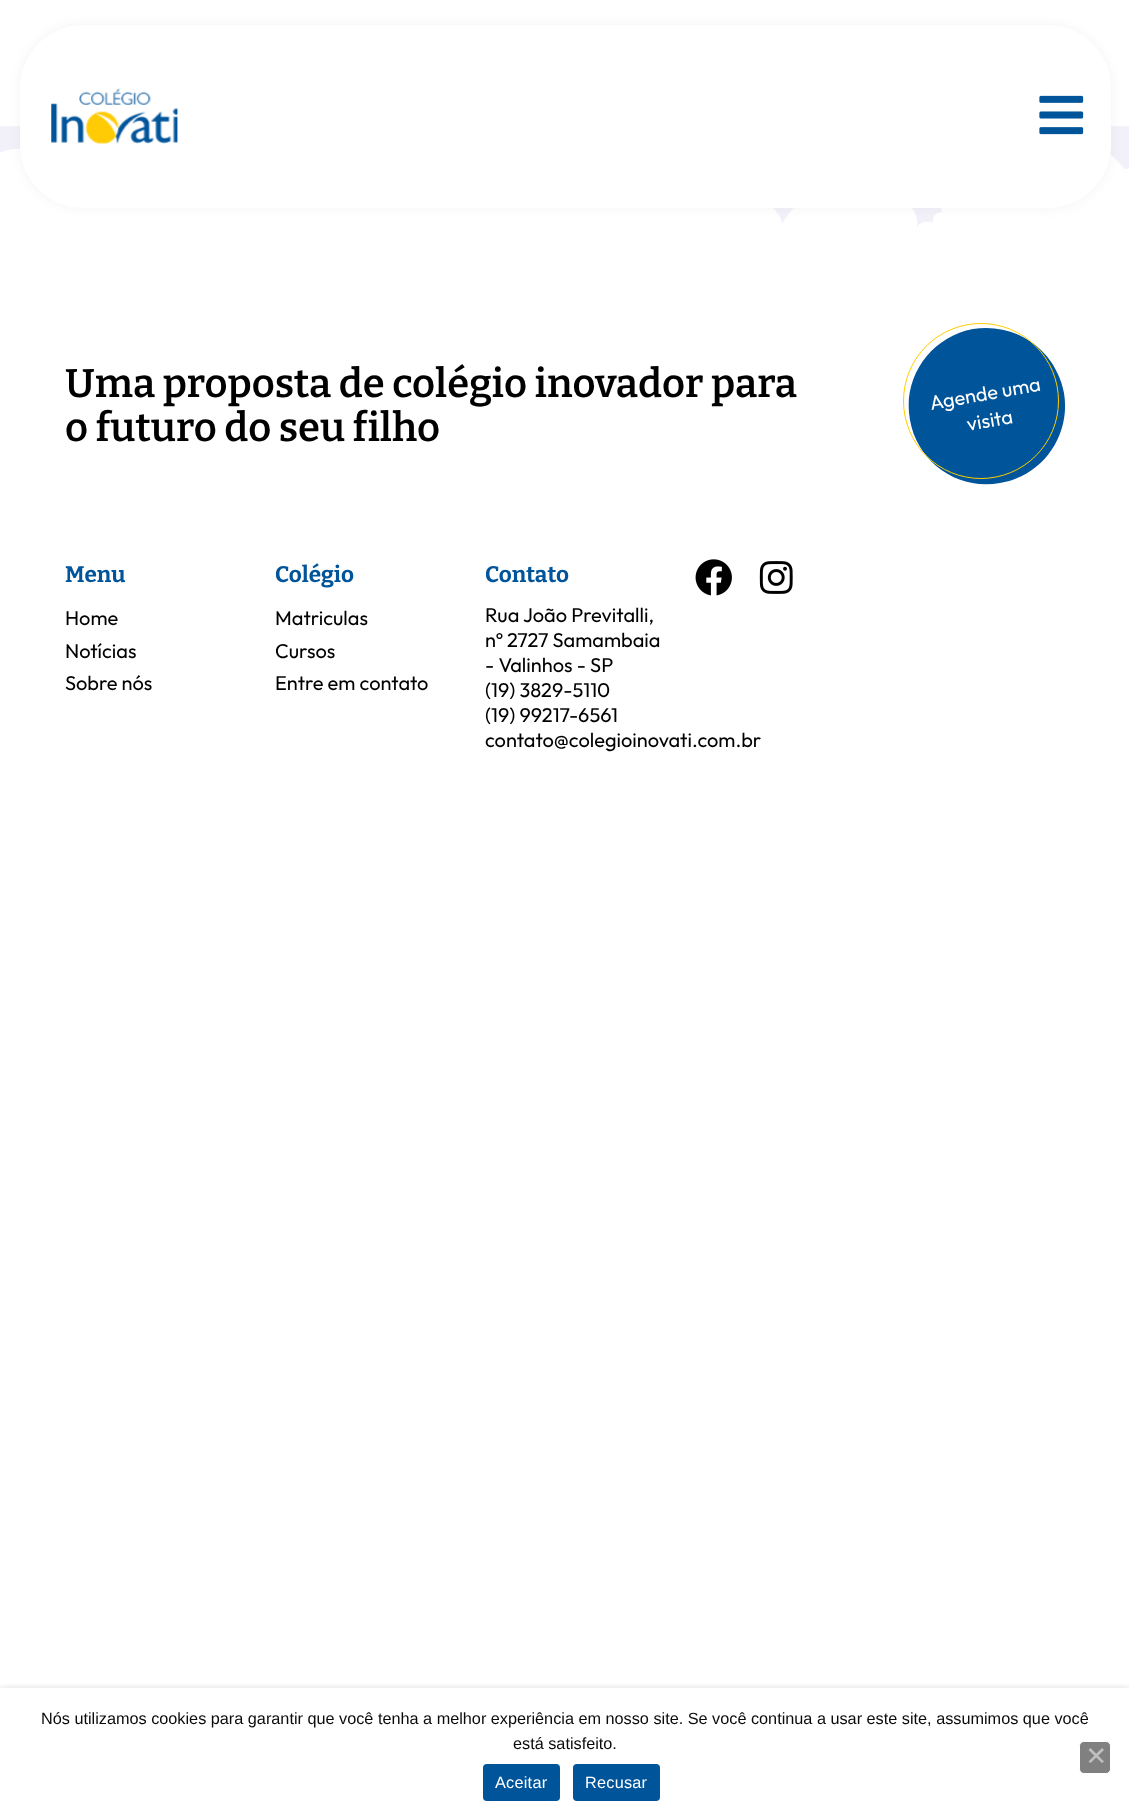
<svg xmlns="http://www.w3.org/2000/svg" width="1129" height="1819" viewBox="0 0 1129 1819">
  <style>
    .t1 { font: 600 40px Bitter; fill: #000; }
    .t2 { font: 20px Outfit; fill: #fff; }
    .t3 { font: bold 22.5px Bitter; fill: #00549a; }
    .t4 { font: 20px Outfit; fill: #000; }
    .t5 { font: 16.25px Liberation Sans; fill: #0a0a0a; }
    .t6 { font: 16.25px Liberation Sans; letter-spacing: 0.25px; fill: #fff; }
  </style>
  <defs>
    <clipPath id="clip1"><rect x="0" y="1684" width="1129" height="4"/></clipPath>
  </defs>
  <rect width="100%" height="100%" fill="#fff"/>
  <image x="0" y="126" width="1129" height="101" href="images/3.png"/>
  <rect x="20" y="25" width="1091" height="183" rx="63" fill="#c5c5c533" filter="blur(6px)"/>
  <rect x="20" y="25" width="1091" height="183" rx="63" fill="#fff"/>
  <image x="51" y="88" width="127" height="56" href="images/1.png"/>
  <image x="1039" y="95" width="45" height="40" href="images/2.png"/>
  <text x="65" y="397" class="t1">Uma proposta de colégio inovador para</text>
  <text x="65" y="441" class="t1">o futuro do seu filho</text>
  <path d="M973 329C1016 322 1056 350 1064 393C1071 435 1043 476 1000 483C958 491 917 462 910 420C902 377 931 337 973 329Z" fill="#00549a"/>
  <text x="931" y="410" transform="rotate(-10 931 410)" class="t2">Agende uma</text>
  <text x="968" y="431" transform="rotate(-10 968 431)" class="t2">visita</text>
  <circle cx="981" cy="401" r="77.5" fill="none" stroke="#ffcd00"/>
  <text x="275" y="582" class="t3">Colégio</text>
  <text x="275" y="625" class="t4">Matriculas</text>
  <text x="275" y="658" class="t4">Cursos</text>
  <text x="275" y="690" class="t4">Entre em contato</text>
  <image x="695" y="559" width="37" height="37" href="images/4.png"/>
  <image x="759" y="561" width="34" height="33" href="images/5.png"/>
  <text x="65" y="582" class="t3">Menu</text>
  <text x="65" y="625" class="t4">Home</text>
  <text x="65" y="658" class="t4">Notícias</text>
  <text x="65" y="690" class="t4">Sobre nós</text>
  <text x="485" y="582" class="t3">Contato</text>
  <text x="485" y="622" class="t4">Rua João Previtalli,</text>
  <text x="485" y="647" class="t4">nº 2727 Samambaia</text>
  <text x="485" y="672" class="t4">- Valinhos - SP</text>
  <text x="485" y="697" class="t4">(19) 3829-5110</text>
  <text x="485" y="722" class="t4">(19) 99217-6561</text>
  <text x="485" y="747" class="t4">contato@colegioinovati.com.br</text>
  <g clip-path="url(#clip1)">
    <rect x="0" y="1690" width="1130" height="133" fill="#00000033" filter="blur(5px)"/>
  </g>
  <text x="41" y="1724" class="t5">Nós utilizamos cookies para garantir que você tenha a melhor experiência em nosso site. Se você continua a usar este site, assumimos que você</text>
  <text x="513" y="1749" class="t5">está satisfeito.</text>
  <rect x="1079.5" y="1741.5" width="31" height="32" rx="4.5" fill="#808080" stroke="#fff"/>
  <path d="M1102 1748L1104 1750L1090.5 1763L1088.5 1761.5Z" fill="#c0c0c0"/>
  <path d="M1088.5 1750L1090.5 1748L1104 1761.5L1102 1763Z" fill="#c0c0c0"/>
  <rect x="483" y="1764" width="77" height="37" rx="4" fill="#00549a"/>
  <text x="495" y="1788" class="t6">Aceitar</text>
  <rect x="573" y="1764" width="87" height="37" rx="4" fill="#00549a"/>
  <text x="585" y="1788" class="t6">Recusar</text>
</svg>
